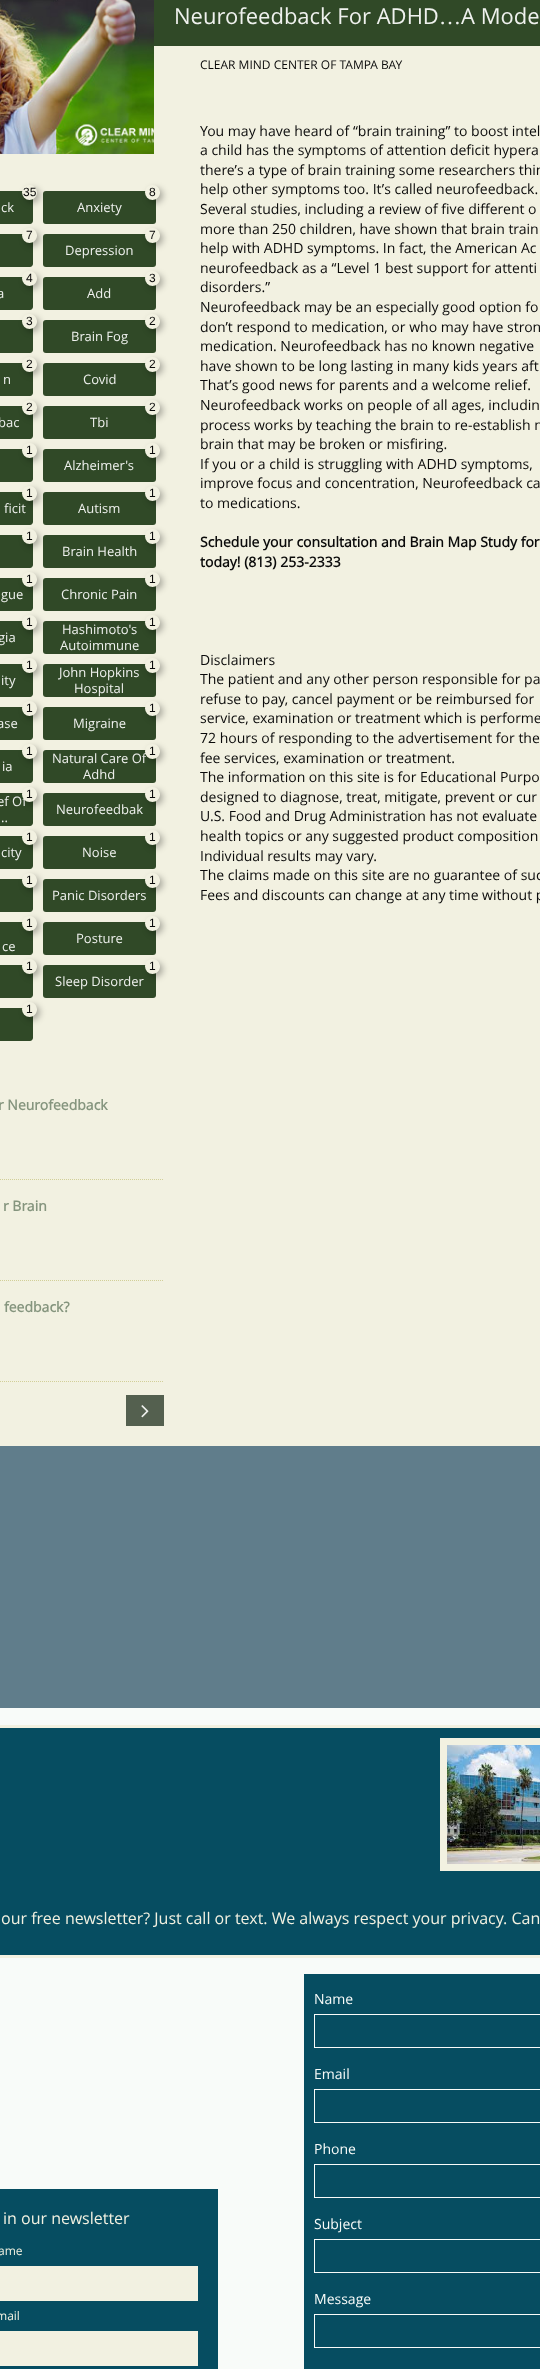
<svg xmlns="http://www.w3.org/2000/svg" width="540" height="2369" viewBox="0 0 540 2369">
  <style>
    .t1 { font: 22px Open Sans; fill: #eff1ee; }
    .t2 { font: 22px Liberation Serif; fill: #eff1ee; }
    .t3 { font: 12px Open Sans; fill: #0a0a0a; }
    .t4 { font: 12px Liberation Sans; fill: #0a0a0a; }
    .t5 { font: 13px Open Sans; fill: #eff1ee; }
    .t6 { font: 14px Open Sans; fill: #0a0a0a; }
    .t7 { font: bold 14px Open Sans; fill: #0a0a0a; }
    .t8 { font: bold 14px Open Sans; fill: #85957e; }
    .t9 { font: 16px Open Sans; fill: #f2f1e1; }
    .t10 { font: 12px Open Sans; fill: #f2f1e1; }
    .t11 { font: 14px Open Sans; fill: #f8fbf9; }
  </style>
  <defs>
    <clipPath id="clip1"><path d="M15 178H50V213H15ZM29.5 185C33.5 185 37 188.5 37 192.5C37 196.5 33.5 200 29.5 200C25.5 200 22 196.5 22 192.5C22 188.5 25.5 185 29.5 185Z" clip-rule="evenodd"/></clipPath>
    <clipPath id="clip2"><path d="M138 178H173V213H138ZM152.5 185C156.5 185 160 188.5 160 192.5C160 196.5 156.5 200 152.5 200C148.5 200 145 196.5 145 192.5C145 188.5 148.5 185 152.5 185Z" clip-rule="evenodd"/></clipPath>
    <clipPath id="clip3"><path d="M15 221H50V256H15ZM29.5 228C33.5 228 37 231.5 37 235.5C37 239.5 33.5 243 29.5 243C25.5 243 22 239.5 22 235.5C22 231.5 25.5 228 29.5 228Z" clip-rule="evenodd"/></clipPath>
    <clipPath id="clip4"><path d="M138 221H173V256H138ZM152.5 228C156.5 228 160 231.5 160 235.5C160 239.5 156.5 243 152.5 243C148.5 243 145 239.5 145 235.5C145 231.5 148.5 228 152.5 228Z" clip-rule="evenodd"/></clipPath>
    <clipPath id="clip5"><path d="M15 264H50V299H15ZM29.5 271C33.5 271 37 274.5 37 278.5C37 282.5 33.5 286 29.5 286C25.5 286 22 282.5 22 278.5C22 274.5 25.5 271 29.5 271Z" clip-rule="evenodd"/></clipPath>
    <clipPath id="clip6"><path d="M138 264H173V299H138ZM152.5 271C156.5 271 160 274.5 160 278.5C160 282.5 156.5 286 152.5 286C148.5 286 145 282.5 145 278.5C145 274.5 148.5 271 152.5 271Z" clip-rule="evenodd"/></clipPath>
    <clipPath id="clip7"><path d="M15 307H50V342H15ZM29.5 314C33.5 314 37 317.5 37 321.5C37 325.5 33.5 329 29.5 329C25.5 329 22 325.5 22 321.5C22 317.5 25.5 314 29.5 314Z" clip-rule="evenodd"/></clipPath>
    <clipPath id="clip8"><path d="M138 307H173V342H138ZM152.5 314C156.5 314 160 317.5 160 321.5C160 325.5 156.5 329 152.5 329C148.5 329 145 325.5 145 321.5C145 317.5 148.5 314 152.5 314Z" clip-rule="evenodd"/></clipPath>
    <clipPath id="clip9"><path d="M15 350H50V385H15ZM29.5 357C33.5 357 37 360.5 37 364.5C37 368.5 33.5 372 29.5 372C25.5 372 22 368.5 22 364.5C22 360.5 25.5 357 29.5 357Z" clip-rule="evenodd"/></clipPath>
    <clipPath id="clip10"><path d="M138 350H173V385H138ZM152.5 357C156.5 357 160 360.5 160 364.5C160 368.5 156.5 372 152.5 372C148.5 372 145 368.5 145 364.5C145 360.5 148.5 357 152.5 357Z" clip-rule="evenodd"/></clipPath>
    <clipPath id="clip11"><path d="M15 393H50V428H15ZM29.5 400C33.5 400 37 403.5 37 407.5C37 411.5 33.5 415 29.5 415C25.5 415 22 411.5 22 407.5C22 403.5 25.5 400 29.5 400Z" clip-rule="evenodd"/></clipPath>
    <clipPath id="clip12"><path d="M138 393H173V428H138ZM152.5 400C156.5 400 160 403.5 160 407.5C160 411.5 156.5 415 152.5 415C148.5 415 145 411.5 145 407.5C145 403.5 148.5 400 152.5 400Z" clip-rule="evenodd"/></clipPath>
    <clipPath id="clip13"><path d="M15 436H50V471H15ZM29.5 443C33.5 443 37 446.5 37 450.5C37 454.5 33.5 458 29.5 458C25.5 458 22 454.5 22 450.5C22 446.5 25.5 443 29.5 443Z" clip-rule="evenodd"/></clipPath>
    <clipPath id="clip14"><path d="M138 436H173V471H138ZM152.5 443C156.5 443 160 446.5 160 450.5C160 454.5 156.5 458 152.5 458C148.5 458 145 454.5 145 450.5C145 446.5 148.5 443 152.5 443Z" clip-rule="evenodd"/></clipPath>
    <clipPath id="clip15"><path d="M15 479H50V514H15ZM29.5 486C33.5 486 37 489.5 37 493.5C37 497.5 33.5 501 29.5 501C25.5 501 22 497.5 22 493.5C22 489.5 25.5 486 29.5 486Z" clip-rule="evenodd"/></clipPath>
    <clipPath id="clip16"><path d="M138 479H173V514H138ZM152.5 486C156.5 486 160 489.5 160 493.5C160 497.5 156.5 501 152.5 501C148.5 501 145 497.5 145 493.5C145 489.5 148.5 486 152.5 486Z" clip-rule="evenodd"/></clipPath>
    <clipPath id="clip17"><path d="M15 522H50V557H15ZM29.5 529C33.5 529 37 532.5 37 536.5C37 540.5 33.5 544 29.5 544C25.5 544 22 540.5 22 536.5C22 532.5 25.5 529 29.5 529Z" clip-rule="evenodd"/></clipPath>
    <clipPath id="clip18"><path d="M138 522H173V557H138ZM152.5 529C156.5 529 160 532.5 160 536.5C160 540.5 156.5 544 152.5 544C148.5 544 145 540.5 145 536.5C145 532.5 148.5 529 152.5 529Z" clip-rule="evenodd"/></clipPath>
    <clipPath id="clip19"><path d="M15 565H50V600H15ZM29.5 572C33.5 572 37 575.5 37 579.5C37 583.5 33.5 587 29.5 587C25.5 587 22 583.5 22 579.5C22 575.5 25.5 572 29.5 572Z" clip-rule="evenodd"/></clipPath>
    <clipPath id="clip20"><path d="M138 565H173V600H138ZM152.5 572C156.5 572 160 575.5 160 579.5C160 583.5 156.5 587 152.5 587C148.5 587 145 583.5 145 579.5C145 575.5 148.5 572 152.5 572Z" clip-rule="evenodd"/></clipPath>
    <clipPath id="clip21"><path d="M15 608H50V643H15ZM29.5 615C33.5 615 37 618.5 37 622.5C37 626.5 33.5 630 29.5 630C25.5 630 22 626.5 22 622.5C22 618.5 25.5 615 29.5 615Z" clip-rule="evenodd"/></clipPath>
    <clipPath id="clip22"><path d="M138 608H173V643H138ZM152.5 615C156.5 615 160 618.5 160 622.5C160 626.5 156.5 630 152.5 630C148.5 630 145 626.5 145 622.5C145 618.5 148.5 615 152.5 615Z" clip-rule="evenodd"/></clipPath>
    <clipPath id="clip23"><path d="M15 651H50V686H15ZM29.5 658C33.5 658 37 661.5 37 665.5C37 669.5 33.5 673 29.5 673C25.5 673 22 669.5 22 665.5C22 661.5 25.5 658 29.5 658Z" clip-rule="evenodd"/></clipPath>
    <clipPath id="clip24"><path d="M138 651H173V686H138ZM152.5 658C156.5 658 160 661.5 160 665.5C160 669.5 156.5 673 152.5 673C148.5 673 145 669.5 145 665.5C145 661.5 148.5 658 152.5 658Z" clip-rule="evenodd"/></clipPath>
    <clipPath id="clip25"><path d="M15 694H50V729H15ZM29.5 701C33.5 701 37 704.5 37 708.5C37 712.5 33.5 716 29.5 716C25.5 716 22 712.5 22 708.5C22 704.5 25.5 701 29.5 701Z" clip-rule="evenodd"/></clipPath>
    <clipPath id="clip26"><path d="M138 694H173V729H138ZM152.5 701C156.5 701 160 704.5 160 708.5C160 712.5 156.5 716 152.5 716C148.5 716 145 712.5 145 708.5C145 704.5 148.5 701 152.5 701Z" clip-rule="evenodd"/></clipPath>
    <clipPath id="clip27"><path d="M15 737H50V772H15ZM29.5 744C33.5 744 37 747.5 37 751.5C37 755.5 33.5 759 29.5 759C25.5 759 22 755.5 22 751.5C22 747.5 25.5 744 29.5 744Z" clip-rule="evenodd"/></clipPath>
    <clipPath id="clip28"><path d="M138 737H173V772H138ZM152.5 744C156.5 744 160 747.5 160 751.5C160 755.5 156.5 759 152.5 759C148.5 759 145 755.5 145 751.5C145 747.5 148.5 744 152.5 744Z" clip-rule="evenodd"/></clipPath>
    <clipPath id="clip29"><path d="M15 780H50V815H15ZM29.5 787C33.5 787 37 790.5 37 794.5C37 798.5 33.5 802 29.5 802C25.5 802 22 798.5 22 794.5C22 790.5 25.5 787 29.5 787Z" clip-rule="evenodd"/></clipPath>
    <clipPath id="clip30"><path d="M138 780H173V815H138ZM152.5 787C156.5 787 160 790.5 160 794.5C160 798.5 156.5 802 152.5 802C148.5 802 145 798.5 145 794.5C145 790.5 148.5 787 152.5 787Z" clip-rule="evenodd"/></clipPath>
    <clipPath id="clip31"><path d="M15 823H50V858H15ZM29.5 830C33.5 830 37 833.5 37 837.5C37 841.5 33.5 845 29.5 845C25.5 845 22 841.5 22 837.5C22 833.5 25.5 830 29.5 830Z" clip-rule="evenodd"/></clipPath>
    <clipPath id="clip32"><path d="M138 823H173V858H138ZM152.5 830C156.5 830 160 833.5 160 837.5C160 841.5 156.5 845 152.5 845C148.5 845 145 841.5 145 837.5C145 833.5 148.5 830 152.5 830Z" clip-rule="evenodd"/></clipPath>
    <clipPath id="clip33"><path d="M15 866H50V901H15ZM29.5 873C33.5 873 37 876.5 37 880.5C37 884.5 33.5 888 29.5 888C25.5 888 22 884.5 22 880.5C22 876.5 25.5 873 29.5 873Z" clip-rule="evenodd"/></clipPath>
    <clipPath id="clip34"><path d="M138 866H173V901H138ZM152.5 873C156.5 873 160 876.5 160 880.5C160 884.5 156.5 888 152.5 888C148.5 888 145 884.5 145 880.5C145 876.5 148.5 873 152.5 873Z" clip-rule="evenodd"/></clipPath>
    <clipPath id="clip35"><path d="M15 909H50V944H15ZM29.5 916C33.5 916 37 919.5 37 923.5C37 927.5 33.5 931 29.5 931C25.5 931 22 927.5 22 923.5C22 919.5 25.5 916 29.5 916Z" clip-rule="evenodd"/></clipPath>
    <clipPath id="clip36"><path d="M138 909H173V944H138ZM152.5 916C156.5 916 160 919.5 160 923.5C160 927.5 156.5 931 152.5 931C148.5 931 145 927.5 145 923.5C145 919.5 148.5 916 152.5 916Z" clip-rule="evenodd"/></clipPath>
    <clipPath id="clip37"><path d="M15 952H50V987H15ZM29.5 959C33.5 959 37 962.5 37 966.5C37 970.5 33.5 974 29.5 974C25.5 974 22 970.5 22 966.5C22 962.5 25.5 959 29.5 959Z" clip-rule="evenodd"/></clipPath>
    <clipPath id="clip38"><path d="M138 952H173V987H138ZM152.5 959C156.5 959 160 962.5 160 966.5C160 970.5 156.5 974 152.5 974C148.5 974 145 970.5 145 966.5C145 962.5 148.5 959 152.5 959Z" clip-rule="evenodd"/></clipPath>
    <clipPath id="clip39"><path d="M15 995H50V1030H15ZM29.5 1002C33.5 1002 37 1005.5 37 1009.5C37 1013.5 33.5 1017 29.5 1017C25.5 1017 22 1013.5 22 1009.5C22 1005.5 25.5 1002 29.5 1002Z" clip-rule="evenodd"/></clipPath>
  </defs>
  <rect width="100%" height="100%" fill="#607d8b"/>
  <rect x="0" y="46" width="540" height="1400" fill="#f2f1e1"/>
  <image x="0" y="0" width="154" height="154" href="images/1.png"/>
  <rect x="154" y="0" width="386" height="46" fill="#304927"/>
  <text x="174" y="24" class="t1">Neurofeedback For ADHD</text>
  <text x="439" y="24" class="t2">…</text>
  <text x="461" y="24" class="t1">A Mode</text>
  <text x="200" y="69" class="t3">CLEAR MIND CENTER OF TAMPA BAY</text>
  <path d="M0 191H30C31.5 191 33 192.5 33 194V221C33 222.5 31.5 224 30 224H0Z" fill="#304927"/>
  <circle cx="29.5" cy="192.5" r="7.5" fill="#f2f1e1"/>
  <g clip-path="url(#clip1)">
    <rect x="25" y="188" width="15" height="15" rx="7.5" fill="#0000004d" filter="blur(3px)"/>
  </g>
  <text x="23" y="196" class="t4">35</text>
  <text x="1" y="212" class="t5">ck</text>
  <rect x="43" y="191" width="113" height="33" rx="3" fill="#304927"/>
  <circle cx="152.5" cy="192.5" r="7.5" fill="#f2f1e1"/>
  <g clip-path="url(#clip2)">
    <rect x="148" y="188" width="15" height="15" rx="7.5" fill="#0000004d" filter="blur(3px)"/>
  </g>
  <text x="149" y="196" class="t4">8</text>
  <text x="77" y="212" class="t5">Anxiety</text>
  <path d="M0 234H30C31.5 234 33 235.5 33 237V264C33 265.5 31.5 267 30 267H0Z" fill="#304927"/>
  <circle cx="29.5" cy="235.5" r="7.5" fill="#f2f1e1"/>
  <g clip-path="url(#clip3)">
    <rect x="25" y="231" width="15" height="15" rx="7.5" fill="#0000004d" filter="blur(3px)"/>
  </g>
  <text x="26" y="239" class="t4">7</text>
  <rect x="43" y="234" width="113" height="33" rx="3" fill="#304927"/>
  <circle cx="152.5" cy="235.5" r="7.5" fill="#f2f1e1"/>
  <g clip-path="url(#clip4)">
    <rect x="148" y="231" width="15" height="15" rx="7.5" fill="#0000004d" filter="blur(3px)"/>
  </g>
  <text x="149" y="239" class="t4">7</text>
  <text x="65" y="255" class="t5">Depression</text>
  <path d="M0 277H30C31.5 277 33 278.5 33 280V307C33 308.5 31.5 310 30 310H0Z" fill="#304927"/>
  <circle cx="29.5" cy="278.5" r="7.5" fill="#f2f1e1"/>
  <g clip-path="url(#clip5)">
    <rect x="25" y="274" width="15" height="15" rx="7.5" fill="#0000004d" filter="blur(3px)"/>
  </g>
  <text x="26" y="282" class="t4">4</text>
  <text x="-3" y="298" class="t5">a</text>
  <rect x="43" y="277" width="113" height="33" rx="3" fill="#304927"/>
  <circle cx="152.5" cy="278.5" r="7.5" fill="#f2f1e1"/>
  <g clip-path="url(#clip6)">
    <rect x="148" y="274" width="15" height="15" rx="7.5" fill="#0000004d" filter="blur(3px)"/>
  </g>
  <text x="149" y="282" class="t4">3</text>
  <text x="87" y="298" class="t5">Add</text>
  <path d="M0 320H30C31.5 320 33 321.5 33 323V350C33 351.5 31.5 353 30 353H0Z" fill="#304927"/>
  <circle cx="29.5" cy="321.5" r="7.5" fill="#f2f1e1"/>
  <g clip-path="url(#clip7)">
    <rect x="25" y="317" width="15" height="15" rx="7.5" fill="#0000004d" filter="blur(3px)"/>
  </g>
  <text x="26" y="325" class="t4">3</text>
  <rect x="43" y="320" width="113" height="33" rx="3" fill="#304927"/>
  <circle cx="152.5" cy="321.5" r="7.5" fill="#f2f1e1"/>
  <g clip-path="url(#clip8)">
    <rect x="148" y="317" width="15" height="15" rx="7.5" fill="#0000004d" filter="blur(3px)"/>
  </g>
  <text x="149" y="325" class="t4">2</text>
  <text x="71" y="341" class="t5">Brain Fog</text>
  <path d="M0 363H30C31.5 363 33 364.5 33 366V393C33 394.5 31.5 396 30 396H0Z" fill="#304927"/>
  <circle cx="29.5" cy="364.5" r="7.5" fill="#f2f1e1"/>
  <g clip-path="url(#clip9)">
    <rect x="25" y="360" width="15" height="15" rx="7.5" fill="#0000004d" filter="blur(3px)"/>
  </g>
  <text x="26" y="368" class="t4">2</text>
  <text x="3" y="384" class="t5">n</text>
  <rect x="43" y="363" width="113" height="33" rx="3" fill="#304927"/>
  <circle cx="152.5" cy="364.5" r="7.5" fill="#f2f1e1"/>
  <g clip-path="url(#clip10)">
    <rect x="148" y="360" width="15" height="15" rx="7.5" fill="#0000004d" filter="blur(3px)"/>
  </g>
  <text x="149" y="368" class="t4">2</text>
  <text x="83" y="384" class="t5">Covid</text>
  <path d="M0 406H30C31.5 406 33 407.5 33 409V436C33 437.5 31.5 439 30 439H0Z" fill="#304927"/>
  <circle cx="29.5" cy="407.5" r="7.5" fill="#f2f1e1"/>
  <g clip-path="url(#clip11)">
    <rect x="25" y="403" width="15" height="15" rx="7.5" fill="#0000004d" filter="blur(3px)"/>
  </g>
  <text x="26" y="411" class="t4">2</text>
  <text x="-2" y="427" class="t5">bac</text>
  <rect x="43" y="406" width="113" height="33" rx="3" fill="#304927"/>
  <circle cx="152.5" cy="407.5" r="7.5" fill="#f2f1e1"/>
  <g clip-path="url(#clip12)">
    <rect x="148" y="403" width="15" height="15" rx="7.5" fill="#0000004d" filter="blur(3px)"/>
  </g>
  <text x="149" y="411" class="t4">2</text>
  <text x="90" y="427" class="t5">Tbi</text>
  <path d="M0 449H30C31.5 449 33 450.5 33 452V479C33 480.5 31.5 482 30 482H0Z" fill="#304927"/>
  <circle cx="29.5" cy="450.5" r="7.5" fill="#f2f1e1"/>
  <g clip-path="url(#clip13)">
    <rect x="25" y="446" width="15" height="15" rx="7.5" fill="#0000004d" filter="blur(3px)"/>
  </g>
  <text x="26" y="454" class="t4">1</text>
  <rect x="43" y="449" width="113" height="33" rx="3" fill="#304927"/>
  <circle cx="152.5" cy="450.5" r="7.5" fill="#f2f1e1"/>
  <g clip-path="url(#clip14)">
    <rect x="148" y="446" width="15" height="15" rx="7.5" fill="#0000004d" filter="blur(3px)"/>
  </g>
  <text x="149" y="454" class="t4">1</text>
  <text x="64" y="470" class="t5">Alzheimer's</text>
  <path d="M0 492H30C31.5 492 33 493.5 33 495V522C33 523.5 31.5 525 30 525H0Z" fill="#304927"/>
  <circle cx="29.5" cy="493.5" r="7.5" fill="#f2f1e1"/>
  <g clip-path="url(#clip15)">
    <rect x="25" y="489" width="15" height="15" rx="7.5" fill="#0000004d" filter="blur(3px)"/>
  </g>
  <text x="26" y="497" class="t4">1</text>
  <text x="4" y="513" class="t5">ficit</text>
  <rect x="43" y="492" width="113" height="33" rx="3" fill="#304927"/>
  <circle cx="152.5" cy="493.5" r="7.5" fill="#f2f1e1"/>
  <g clip-path="url(#clip16)">
    <rect x="148" y="489" width="15" height="15" rx="7.5" fill="#0000004d" filter="blur(3px)"/>
  </g>
  <text x="149" y="497" class="t4">1</text>
  <text x="78" y="513" class="t5">Autism</text>
  <path d="M0 535H30C31.5 535 33 536.5 33 538V565C33 566.5 31.5 568 30 568H0Z" fill="#304927"/>
  <circle cx="29.5" cy="536.5" r="7.5" fill="#f2f1e1"/>
  <g clip-path="url(#clip17)">
    <rect x="25" y="532" width="15" height="15" rx="7.5" fill="#0000004d" filter="blur(3px)"/>
  </g>
  <text x="26" y="540" class="t4">1</text>
  <rect x="43" y="535" width="113" height="33" rx="3" fill="#304927"/>
  <circle cx="152.5" cy="536.5" r="7.5" fill="#f2f1e1"/>
  <g clip-path="url(#clip18)">
    <rect x="148" y="532" width="15" height="15" rx="7.5" fill="#0000004d" filter="blur(3px)"/>
  </g>
  <text x="149" y="540" class="t4">1</text>
  <text x="62" y="556" class="t5">Brain Health</text>
  <path d="M0 578H30C31.5 578 33 579.5 33 581V608C33 609.5 31.5 611 30 611H0Z" fill="#304927"/>
  <circle cx="29.5" cy="579.5" r="7.5" fill="#f2f1e1"/>
  <g clip-path="url(#clip19)">
    <rect x="25" y="575" width="15" height="15" rx="7.5" fill="#0000004d" filter="blur(3px)"/>
  </g>
  <text x="26" y="583" class="t4">1</text>
  <text x="1" y="599" class="t5">gue</text>
  <rect x="43" y="578" width="113" height="33" rx="3" fill="#304927"/>
  <circle cx="152.5" cy="579.5" r="7.5" fill="#f2f1e1"/>
  <g clip-path="url(#clip20)">
    <rect x="148" y="575" width="15" height="15" rx="7.5" fill="#0000004d" filter="blur(3px)"/>
  </g>
  <text x="149" y="583" class="t4">1</text>
  <text x="61" y="599" class="t5">Chronic Pain</text>
  <path d="M0 621H30C31.5 621 33 622.5 33 624V651C33 652.5 31.5 654 30 654H0Z" fill="#304927"/>
  <circle cx="29.5" cy="622.5" r="7.5" fill="#f2f1e1"/>
  <g clip-path="url(#clip21)">
    <rect x="25" y="618" width="15" height="15" rx="7.5" fill="#0000004d" filter="blur(3px)"/>
  </g>
  <text x="26" y="626" class="t4">1</text>
  <text x="-2" y="642" class="t5">gia</text>
  <rect x="43" y="621" width="113" height="33" rx="3" fill="#304927"/>
  <circle cx="152.5" cy="622.5" r="7.5" fill="#f2f1e1"/>
  <g clip-path="url(#clip22)">
    <rect x="148" y="618" width="15" height="15" rx="7.5" fill="#0000004d" filter="blur(3px)"/>
  </g>
  <text x="149" y="626" class="t4">1</text>
  <text x="62" y="634" class="t5">Hashimoto's</text>
  <text x="60" y="650" class="t5">Autoimmune</text>
  <path d="M0 664H30C31.5 664 33 665.5 33 667V694C33 695.5 31.5 697 30 697H0Z" fill="#304927"/>
  <circle cx="29.5" cy="665.5" r="7.5" fill="#f2f1e1"/>
  <g clip-path="url(#clip23)">
    <rect x="25" y="661" width="15" height="15" rx="7.5" fill="#0000004d" filter="blur(3px)"/>
  </g>
  <text x="26" y="669" class="t4">1</text>
  <text x="1" y="685" class="t5">ity</text>
  <rect x="43" y="664" width="113" height="33" rx="3" fill="#304927"/>
  <circle cx="152.5" cy="665.5" r="7.5" fill="#f2f1e1"/>
  <g clip-path="url(#clip24)">
    <rect x="148" y="661" width="15" height="15" rx="7.5" fill="#0000004d" filter="blur(3px)"/>
  </g>
  <text x="149" y="669" class="t4">1</text>
  <text x="59" y="677" class="t5">John Hopkins</text>
  <text x="74" y="693" class="t5">Hospital</text>
  <path d="M0 707H30C31.5 707 33 708.5 33 710V737C33 738.5 31.5 740 30 740H0Z" fill="#304927"/>
  <circle cx="29.5" cy="708.5" r="7.5" fill="#f2f1e1"/>
  <g clip-path="url(#clip25)">
    <rect x="25" y="704" width="15" height="15" rx="7.5" fill="#0000004d" filter="blur(3px)"/>
  </g>
  <text x="26" y="712" class="t4">1</text>
  <text x="-3" y="728" class="t5">ase</text>
  <rect x="43" y="707" width="113" height="33" rx="3" fill="#304927"/>
  <circle cx="152.5" cy="708.5" r="7.5" fill="#f2f1e1"/>
  <g clip-path="url(#clip26)">
    <rect x="148" y="704" width="15" height="15" rx="7.5" fill="#0000004d" filter="blur(3px)"/>
  </g>
  <text x="149" y="712" class="t4">1</text>
  <text x="73" y="728" class="t5">Migraine</text>
  <path d="M0 750H30C31.5 750 33 751.5 33 753V780C33 781.5 31.5 783 30 783H0Z" fill="#304927"/>
  <circle cx="29.5" cy="751.5" r="7.5" fill="#f2f1e1"/>
  <g clip-path="url(#clip27)">
    <rect x="25" y="747" width="15" height="15" rx="7.5" fill="#0000004d" filter="blur(3px)"/>
  </g>
  <text x="26" y="755" class="t4">1</text>
  <text x="2" y="771" class="t5">ia</text>
  <rect x="43" y="750" width="113" height="33" rx="3" fill="#304927"/>
  <text x="52" y="763" class="t5">Natural Care Of</text>
  <circle cx="152.5" cy="751.5" r="7.5" fill="#f2f1e1"/>
  <g clip-path="url(#clip28)">
    <rect x="148" y="747" width="15" height="15" rx="7.5" fill="#0000004d" filter="blur(3px)"/>
  </g>
  <text x="149" y="755" class="t4">1</text>
  <text x="83" y="779" class="t5">Adhd</text>
  <path d="M0 793H30C31.5 793 33 794.5 33 796V823C33 824.5 31.5 826 30 826H0Z" fill="#304927"/>
  <text x="-3" y="806" class="t5">ef Of</text>
  <circle cx="29.5" cy="794.5" r="7.5" fill="#f2f1e1"/>
  <g clip-path="url(#clip29)">
    <rect x="25" y="790" width="15" height="15" rx="7.5" fill="#0000004d" filter="blur(3px)"/>
  </g>
  <text x="26" y="798" class="t4">1</text>
  <text x="1" y="822" class="t5">..</text>
  <rect x="43" y="793" width="113" height="33" rx="3" fill="#304927"/>
  <circle cx="152.5" cy="794.5" r="7.5" fill="#f2f1e1"/>
  <g clip-path="url(#clip30)">
    <rect x="148" y="790" width="15" height="15" rx="7.5" fill="#0000004d" filter="blur(3px)"/>
  </g>
  <text x="149" y="798" class="t4">1</text>
  <text x="56" y="814" class="t5">Neurofeedbak</text>
  <path d="M0 836H30C31.5 836 33 837.5 33 839V866C33 867.5 31.5 869 30 869H0Z" fill="#304927"/>
  <circle cx="29.5" cy="837.5" r="7.5" fill="#f2f1e1"/>
  <g clip-path="url(#clip31)">
    <rect x="25" y="833" width="15" height="15" rx="7.5" fill="#0000004d" filter="blur(3px)"/>
  </g>
  <text x="26" y="841" class="t4">1</text>
  <text x="1" y="857" class="t5">city</text>
  <rect x="43" y="836" width="113" height="33" rx="3" fill="#304927"/>
  <circle cx="152.5" cy="837.5" r="7.5" fill="#f2f1e1"/>
  <g clip-path="url(#clip32)">
    <rect x="148" y="833" width="15" height="15" rx="7.5" fill="#0000004d" filter="blur(3px)"/>
  </g>
  <text x="149" y="841" class="t4">1</text>
  <text x="82" y="857" class="t5">Noise</text>
  <path d="M0 879H30C31.5 879 33 880.5 33 882V909C33 910.5 31.5 912 30 912H0Z" fill="#304927"/>
  <circle cx="29.5" cy="880.5" r="7.5" fill="#f2f1e1"/>
  <g clip-path="url(#clip33)">
    <rect x="25" y="876" width="15" height="15" rx="7.5" fill="#0000004d" filter="blur(3px)"/>
  </g>
  <text x="26" y="884" class="t4">1</text>
  <rect x="43" y="879" width="113" height="33" rx="3" fill="#304927"/>
  <circle cx="152.5" cy="880.5" r="7.5" fill="#f2f1e1"/>
  <g clip-path="url(#clip34)">
    <rect x="148" y="876" width="15" height="15" rx="7.5" fill="#0000004d" filter="blur(3px)"/>
  </g>
  <text x="149" y="884" class="t4">1</text>
  <text x="52" y="900" class="t5">Panic Disorders</text>
  <path d="M0 922H30C31.5 922 33 923.5 33 925V952C33 953.5 31.5 955 30 955H0Z" fill="#304927"/>
  <circle cx="29.5" cy="923.5" r="7.5" fill="#f2f1e1"/>
  <g clip-path="url(#clip35)">
    <rect x="25" y="919" width="15" height="15" rx="7.5" fill="#0000004d" filter="blur(3px)"/>
  </g>
  <text x="26" y="927" class="t4">1</text>
  <text x="2" y="951" class="t5">ce</text>
  <rect x="43" y="922" width="113" height="33" rx="3" fill="#304927"/>
  <circle cx="152.5" cy="923.5" r="7.5" fill="#f2f1e1"/>
  <g clip-path="url(#clip36)">
    <rect x="148" y="919" width="15" height="15" rx="7.5" fill="#0000004d" filter="blur(3px)"/>
  </g>
  <text x="149" y="927" class="t4">1</text>
  <text x="76" y="943" class="t5">Posture</text>
  <path d="M0 965H30C31.5 965 33 966.5 33 968V995C33 996.5 31.5 998 30 998H0Z" fill="#304927"/>
  <circle cx="29.5" cy="966.5" r="7.5" fill="#f2f1e1"/>
  <g clip-path="url(#clip37)">
    <rect x="25" y="962" width="15" height="15" rx="7.5" fill="#0000004d" filter="blur(3px)"/>
  </g>
  <text x="26" y="970" class="t4">1</text>
  <rect x="43" y="965" width="113" height="33" rx="3" fill="#304927"/>
  <circle cx="152.5" cy="966.5" r="7.5" fill="#f2f1e1"/>
  <g clip-path="url(#clip38)">
    <rect x="148" y="962" width="15" height="15" rx="7.5" fill="#0000004d" filter="blur(3px)"/>
  </g>
  <text x="149" y="970" class="t4">1</text>
  <text x="55" y="986" class="t5">Sleep Disorder</text>
  <path d="M0 1008H30C31.5 1008 33 1009.5 33 1011V1038C33 1039.5 31.5 1041 30 1041H0Z" fill="#304927"/>
  <circle cx="29.5" cy="1009.5" r="7.5" fill="#f2f1e1"/>
  <g clip-path="url(#clip39)">
    <rect x="25" y="1005" width="15" height="15" rx="7.5" fill="#0000004d" filter="blur(3px)"/>
  </g>
  <text x="26" y="1013" class="t4">1</text>
  <text x="200" y="136" class="t6">You may have heard of “brain training” to boost intel</text>
  <text x="200" y="155" class="t6">a child has the symptoms of attention deficit hypera</text>
  <text x="200" y="175" class="t6">there’s a type of brain training some researchers thin</text>
  <text x="200" y="194" class="t6">help other symptoms too. It’s called neurofeedback.</text>
  <text x="200" y="214" class="t6">Several studies, including a review of five different o</text>
  <text x="200" y="234" class="t6">more than 250 children, have shown that brain train</text>
  <text x="200" y="253" class="t6">help with ADHD symptoms. In fact, the American Ac</text>
  <text x="200" y="273" class="t6">neurofeedback as a “Level 1 best support for attenti</text>
  <text x="200" y="292" class="t6">disorders.”</text>
  <text x="200" y="312" class="t6">Neurofeedback may be an especially good option fo</text>
  <text x="200" y="332" class="t6">don’t respond to medication, or who may have stron</text>
  <text x="200" y="351" class="t6">medication. Neurofeedback has no known negative</text>
  <text x="200" y="371" class="t6">have shown to be long lasting in many kids years aft</text>
  <text x="200" y="390" class="t6">That’s good news for parents and a welcome relief.</text>
  <text x="200" y="410" class="t6">Neurofeedback works on people of all ages, includin</text>
  <text x="200" y="430" class="t6">process works by teaching the brain to re-establish n</text>
  <text x="200" y="449" class="t6">brain that may be broken or misfiring.</text>
  <text x="200" y="469" class="t6">If you or a child is struggling with ADHD symptoms,</text>
  <text x="200" y="488" class="t6">improve focus and concentration, Neurofeedback ca</text>
  <text x="200" y="508" class="t6">to medications.</text>
  <text x="200" y="547" class="t7">Schedule your consultation and Brain Map Study for</text>
  <text x="200" y="567" class="t7">today! (813) 253-2333</text>
  <text x="200" y="665" class="t6">Disclaimers</text>
  <text x="200" y="684" class="t6">The patient and any other person responsible for pa</text>
  <text x="200" y="704" class="t6">refuse to pay, cancel payment or be reimbursed for</text>
  <text x="200" y="723" class="t6">service, examination or treatment which is performe</text>
  <text x="200" y="743" class="t6">72 hours of responding to the advertisement for the</text>
  <text x="200" y="763" class="t6">fee services, examination or treatment.</text>
  <text x="200" y="782" class="t6">The information on this site is for Educational Purpo</text>
  <text x="200" y="802" class="t6">designed to diagnose, treat, mitigate, prevent or cur</text>
  <text x="200" y="821" class="t6">U.S. Food and Drug Administration has not evaluate</text>
  <text x="200" y="841" class="t6">health topics or any suggested product composition</text>
  <text x="200" y="861" class="t6">Individual results may vary.</text>
  <text x="200" y="880" class="t6">The claims made on this site are no guarantee of suc</text>
  <text x="200" y="900" class="t6">Fees and discounts can change at any time without p</text>
  <path d="M-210 1179.5H164" fill="none" stroke="#d2cf98" stroke-dasharray="1 1"/>
  <text x="-2" y="1110" class="t8">r Neurofeedback</text>
  <path d="M-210 1280.5H164" fill="none" stroke="#d2cf98" stroke-dasharray="1 1"/>
  <text x="3" y="1211" class="t8">r Brain</text>
  <path d="M-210 1381.5H164" fill="none" stroke="#d2cf98" stroke-dasharray="1 1"/>
  <text x="4" y="1312" class="t8">feedback?</text>
  <rect x="126" y="1395" width="38" height="31" fill="#54604f"/>
  <image x="141" y="1405" width="8" height="13" href="images/2.png"/>
  <rect x="0" y="1708" width="540" height="661" fill="#f8fbf9"/>
  <rect x="-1.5" y="1726.5" width="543" height="230" fill="#064d61" stroke="#f2f1e1" stroke-width="3"/>
  <image x="447" y="1745" width="93" height="119" href="images/3.png"/>
  <rect x="443.5" y="1741.5" width="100" height="126" fill="none" stroke="#f2f1e1" stroke-width="7"/>
  <text x="1" y="1924" class="t9">our free newsletter? Just call or text. We always respect your privacy. Can</text>
  <rect x="0" y="2189" width="218" height="180" fill="#064d61"/>
  <text x="3" y="2224" class="t9">in our newsletter</text>
  <text x="-2" y="2255" class="t10">ame</text>
  <rect x="-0.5" y="2266.5" width="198" height="34" fill="#f2f1e1" stroke="#f2f1e1"/>
  <text x="-4" y="2320" class="t10">mail</text>
  <rect x="-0.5" y="2331.5" width="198" height="34" fill="#f2f1e1" stroke="#f2f1e1"/>
  <rect x="304" y="1974" width="236" height="395" fill="#064d61"/>
  <text x="314" y="2004" class="t11">Name</text>
  <rect x="314.5" y="2014.5" width="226" height="33" fill="none" stroke="#f8fbf9"/>
  <text x="314" y="2079" class="t11">Email</text>
  <rect x="314.5" y="2089.5" width="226" height="33" fill="none" stroke="#f8fbf9"/>
  <text x="314" y="2154" class="t11">Phone</text>
  <rect x="314.5" y="2164.5" width="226" height="33" fill="none" stroke="#f8fbf9"/>
  <text x="314" y="2229" class="t11">Subject</text>
  <rect x="314.5" y="2239.5" width="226" height="33" fill="none" stroke="#f8fbf9"/>
  <text x="314" y="2304" class="t11">Message</text>
  <rect x="314.5" y="2314.5" width="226" height="33" fill="none" stroke="#f8fbf9"/>
</svg>
